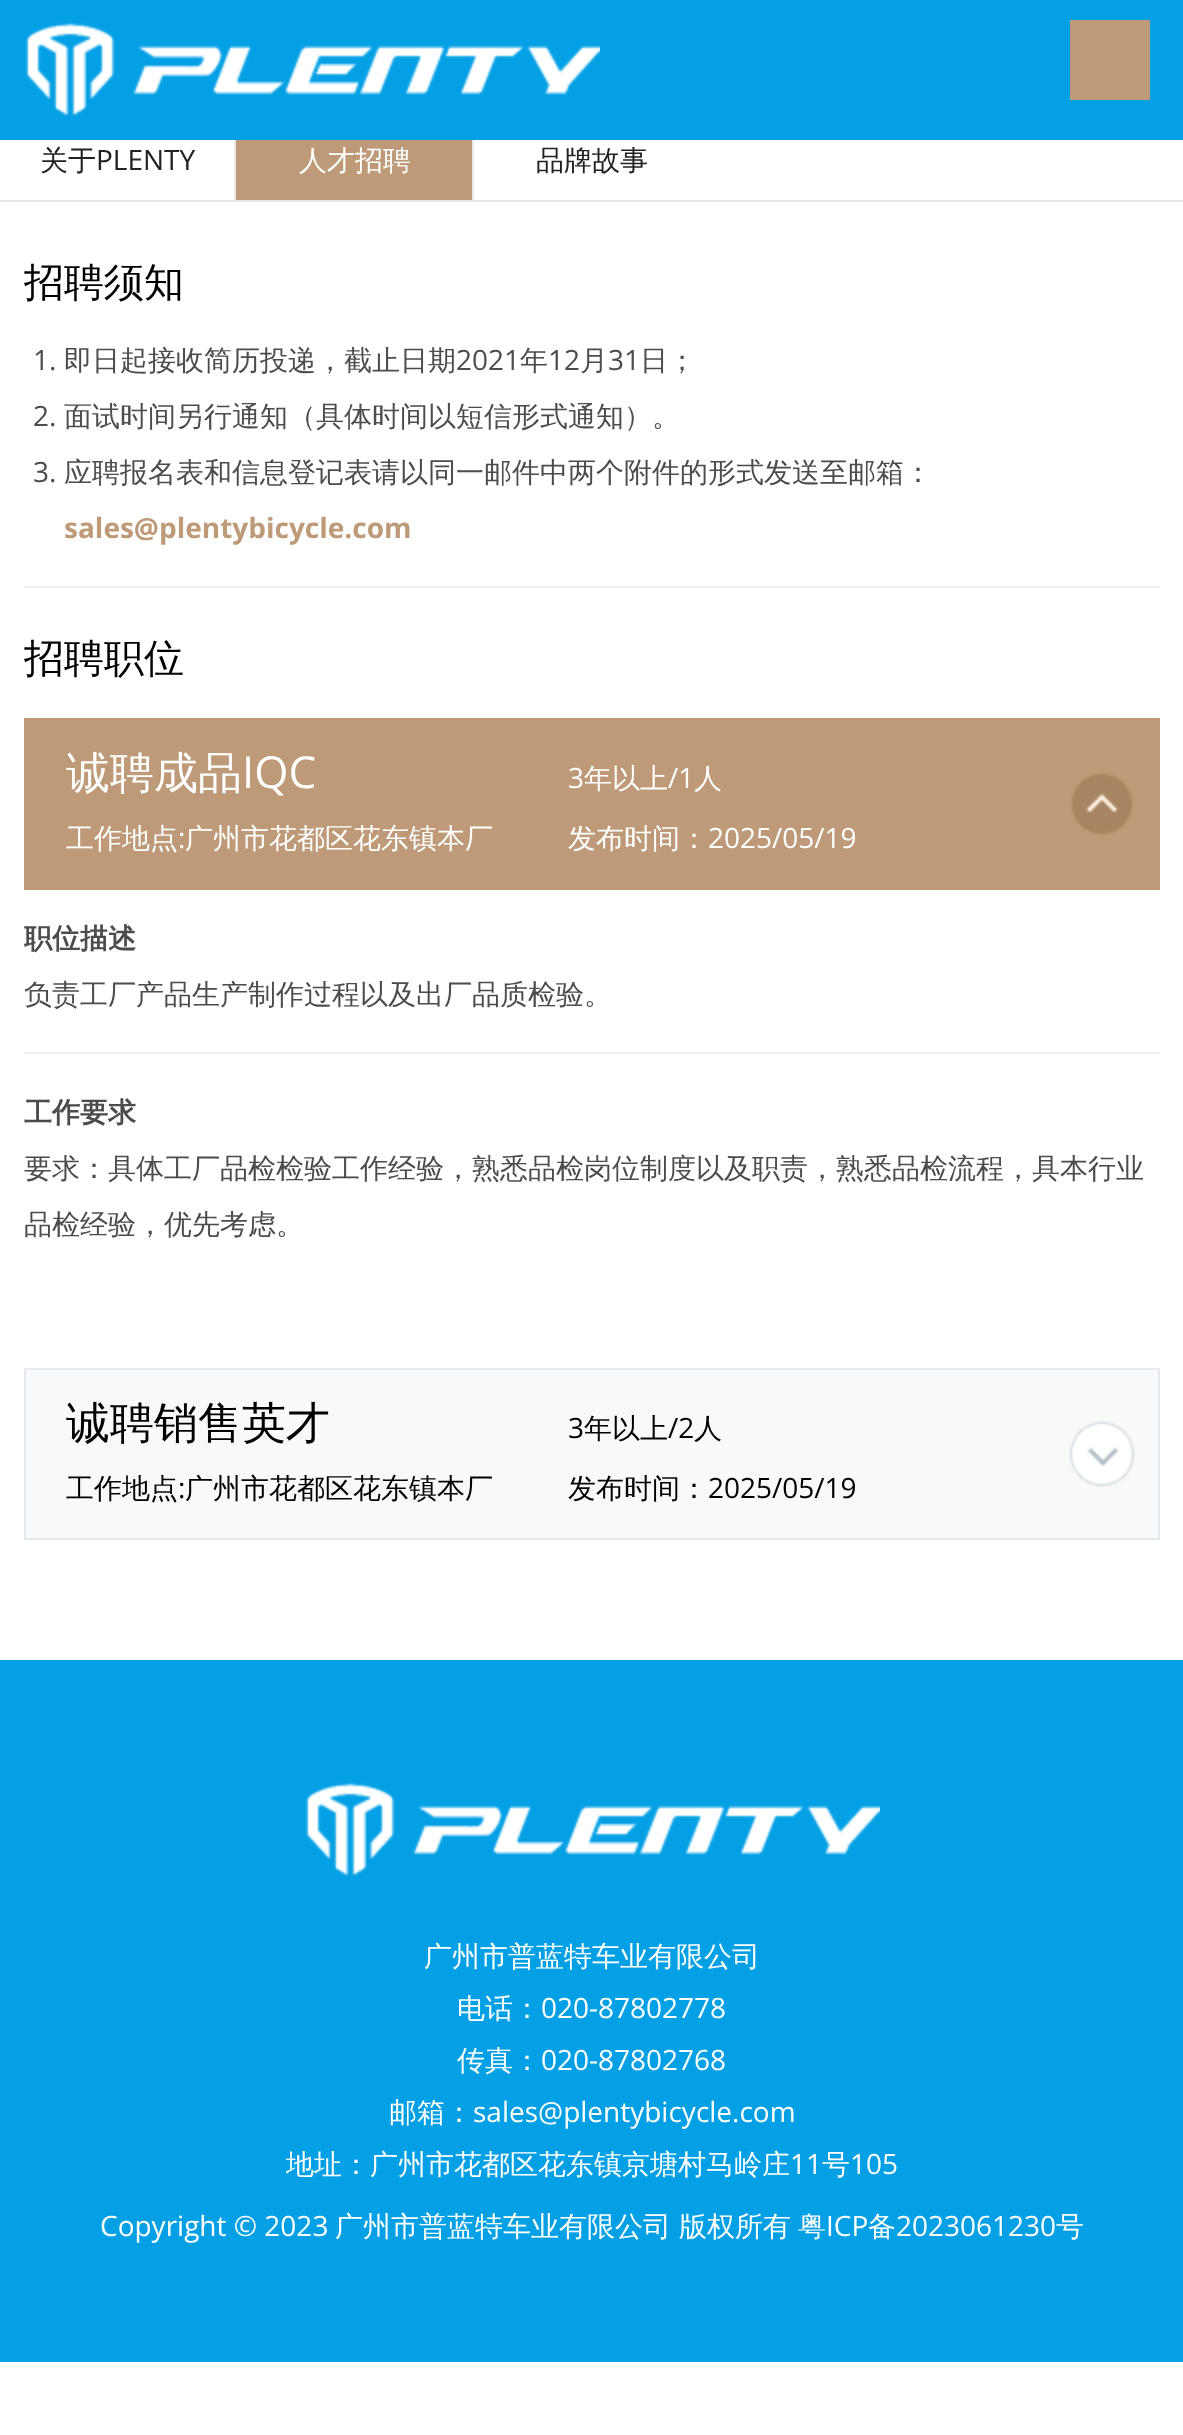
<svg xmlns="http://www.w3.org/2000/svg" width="1183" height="2435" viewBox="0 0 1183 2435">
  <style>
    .t1 { font: 500 28px WenQuanYi Zen Hei; fill: #222; }
    .t2 { font: 28px Open Sans; fill: #222; }
    .t3 { font: 500 28px WenQuanYi Zen Hei; fill: #fff; }
    .t4 { font: 500 40px WenQuanYi Zen Hei; fill: #000; }
    .t5 { font: 28px Open Sans; fill: #4c4c4c; }
    .t6 { font: 500 28px WenQuanYi Zen Hei; fill: #4c4c4c; }
    .t7 { font: bold 28px Open Sans; fill: #be9a78; }
    .t8 { font: 500 44px WenQuanYi Zen Hei; fill: #fff; }
    .t9 { font: 44px Open Sans; fill: #fff; }
    .t10 { font: 28px Open Sans; fill: #fff; }
    .t11 { font: bold 28px WenQuanYi Zen Hei; fill: #4c4c4c; }
    .t12 { font: 500 44px WenQuanYi Zen Hei; fill: #000; }
    .t13 { font: 28px Open Sans; fill: #000; }
    .t14 { font: 500 28px WenQuanYi Zen Hei; fill: #000; }
  </style>
  <rect width="100%" height="100%" fill="#fff"/>
  <rect x="0" y="0" width="1183" height="140" fill="#04a0e5"/>
  <image x="25" y="23" width="575" height="94" href="images/1.png"/>
  <rect x="1070" y="20" width="80" height="80" fill="#be9a78"/>
  <rect x="0" y="200" width="1183" height="2" fill="#e8e8e8"/>
  <text x="40" y="170" class="t1">关于</text>
  <text x="96" y="170" class="t2">PLENTY</text>
  <rect x="236" y="140" width="236" height="60" fill="#be9a78"/>
  <rect x="234" y="140" width="2" height="60" fill="#e8e8e8"/>
  <text x="299" y="170" class="t3">人才招聘</text>
  <rect x="472" y="140" width="2" height="60" fill="#e8e8e8"/>
  <text x="536" y="170" class="t1">品牌故事</text>
  <rect x="24" y="586" width="1136" height="2" fill="#ebefef"/>
  <text x="24" y="296" class="t4">招聘须知</text>
  <text x="33" y="370" class="t5">1.</text>
  <text x="64" y="370" class="t6">即日起接收简历投递，截止日期</text>
  <text x="456" y="370" class="t5">2021</text>
  <text x="520" y="370" class="t6">年</text>
  <text x="548" y="370" class="t5">12</text>
  <text x="580" y="370" class="t6">月</text>
  <text x="608" y="370" class="t5">31</text>
  <text x="640" y="370" class="t6">日；</text>
  <text x="33" y="426" class="t5">2.</text>
  <text x="64" y="426" class="t6">面试时间另行通知（具体时间以短信形式通知）。</text>
  <text x="33" y="482" class="t5">3.</text>
  <text x="64" y="482" class="t6">应聘报名表和信息登记表请以同一邮件中两个附件的形式发送至邮箱：</text>
  <text x="64" y="538" class="t7">sales@plentybicycle.com</text>
  <text x="24" y="672" class="t4">招聘职位</text>
  <rect x="24" y="718" width="1136" height="172" fill="#be9a78"/>
  <image x="1071" y="773" width="62" height="62" href="images/2.png"/>
  <text x="66" y="788" class="t8">诚聘成品</text>
  <text x="242" y="788" class="t9">IQC</text>
  <text x="568" y="788" class="t10">3</text>
  <text x="584" y="788" class="t3">年以上</text>
  <text x="668" y="788" class="t10">/1</text>
  <text x="694" y="788" class="t3">人</text>
  <text x="66" y="848" class="t3">工作地点</text>
  <text x="178" y="848" class="t10">:</text>
  <text x="185" y="848" class="t3">广州市花都区花东镇本厂</text>
  <text x="568" y="848" class="t3">发布时间：</text>
  <text x="708" y="848" class="t10">2025/05/19</text>
  <rect x="24" y="1052" width="1136" height="2" fill="#ebefef"/>
  <text x="24" y="948" class="t11">职位描述</text>
  <text x="24" y="1004" class="t6">负责工厂产品生产制作过程以及出厂品质检验。</text>
  <text x="24" y="1122" class="t11">工作要求</text>
  <text x="24" y="1178" class="t6">要求：具体工厂品检检验工作经验，熟悉品检岗位制度以及职责，熟悉品检流程，具本行业</text>
  <text x="24" y="1234" class="t6">品检经验，优先考虑。</text>
  <rect x="26" y="1370" width="1132" height="168" fill="#f9f9f9"/>
  <image x="1069" y="1421" width="66" height="66" href="images/3.png"/>
  <rect x="25" y="1369" width="1134" height="170" fill="none" stroke="#e3e9ec" stroke-width="2"/>
  <text x="66" y="1438" class="t12">诚聘销售英才</text>
  <text x="568" y="1438" class="t13">3</text>
  <text x="584" y="1438" class="t14">年以上</text>
  <text x="668" y="1438" class="t13">/2</text>
  <text x="694" y="1438" class="t14">人</text>
  <text x="66" y="1498" class="t14">工作地点</text>
  <text x="178" y="1498" class="t13">:</text>
  <text x="185" y="1498" class="t14">广州市花都区花东镇本厂</text>
  <text x="568" y="1498" class="t14">发布时间：</text>
  <text x="708" y="1498" class="t13">2025/05/19</text>
  <rect x="0" y="1660" width="1183" height="702" fill="#03a0e5"/>
  <image x="305" y="1783" width="575" height="94" href="images/4.png"/>
  <text x="424" y="1966" class="t3">广州市普蓝特车业有限公司</text>
  <text x="457" y="2018" class="t3">电话：</text>
  <text x="541" y="2018" class="t10">020-87802778</text>
  <text x="457" y="2070" class="t3">传真：</text>
  <text x="541" y="2070" class="t10">020-87802768</text>
  <text x="389" y="2122" class="t3">邮箱：</text>
  <text x="473" y="2122" class="t10">sales@plentybicycle.com</text>
  <text x="286" y="2174" class="t3">地址：广州市花都区花东镇京塘村马岭庄</text>
  <text x="790" y="2174" class="t10">11</text>
  <text x="822" y="2174" class="t3">号</text>
  <text x="850" y="2174" class="t10">105</text>
  <text x="100" y="2236" class="t10">Copyright © 2023</text>
  <text x="335" y="2236" class="t3">广州市普蓝特车业有限公司</text>
  <text x="679" y="2236" class="t3">版权所有</text>
  <text x="798" y="2236" class="t3">粤</text>
  <text x="826" y="2236" class="t10">ICP</text>
  <text x="868" y="2236" class="t3">备</text>
  <text x="896" y="2236" class="t10">2023061230</text>
  <text x="1056" y="2236" class="t3">号</text>
</svg>
